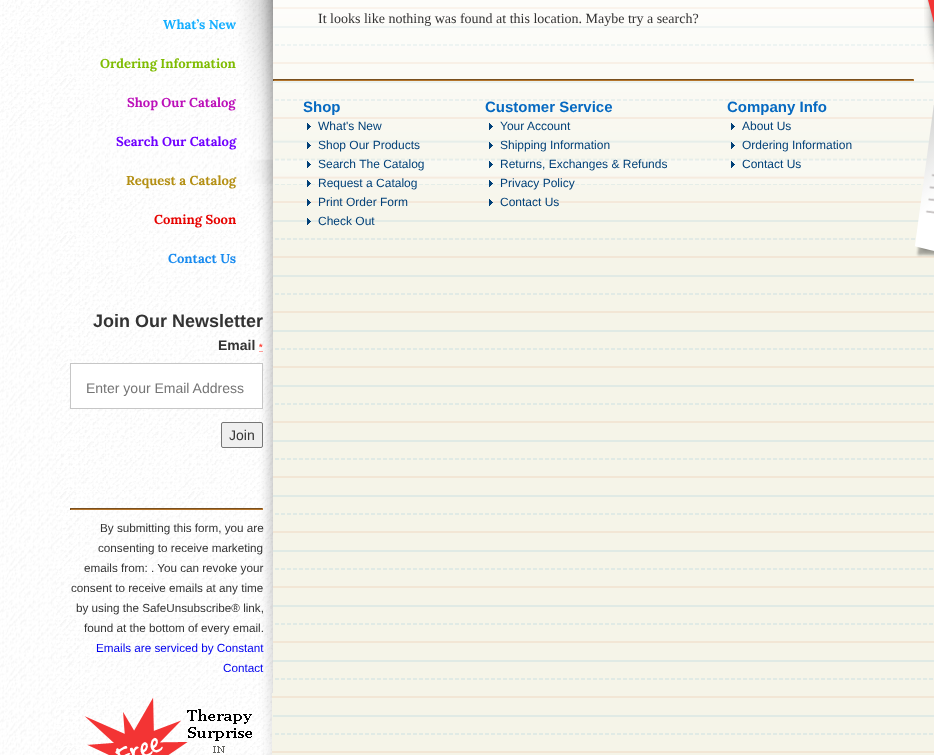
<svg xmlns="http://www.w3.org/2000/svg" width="934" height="755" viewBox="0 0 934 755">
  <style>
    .t1 { font: bold 13px Lora; fill: #16afff; }
    .t2 { font: bold 13px Lora; fill: #7fbc02; }
    .t3 { font: bold 13px Lora; fill: #bc0fb9; }
    .t4 { font: bold 13px Lora; fill: #7000ff; }
    .t5 { font: bold 13px Lora; fill: #b49015; }
    .t6 { font: bold 13px Lora; fill: #e70300; }
    .t7 { font: bold 13px Lora; fill: #198bef; }
    .t8 { font: bold 18px Liberation Sans; fill: #333; }
    .t9 { font: bold 14px Liberation Sans; fill: #333; }
    .t10 { font: bold 9px Liberation Sans; fill: #ff4136; }
    .t11 { font: 14px Liberation Sans; fill: #757575; }
    .t12 { font: 14px Liberation Sans; fill: #333; }
    .t13 { font: 11.7px Liberation Sans; fill: #333; }
    .t14 { font: 11.7px Liberation Sans; fill: #00e; }
    .t15 { font: 14px Liberation Serif; fill: #333; }
    .t16 { font: bold 15px Liberation Sans; fill: #0669c1; }
    .t17 { font: 12px Liberation Sans; fill: #004078; }
  </style>
  <rect width="100%" height="100%" fill="#fff"/>
  <image x="0" y="128" width="931" height="627" href="images/1.png"/>
  <image x="56" y="184" width="878" height="571" href="images/2.png"/>
  <image x="0" y="0" width="934" height="128" href="images/3.png"/>
  <text x="163" y="29" class="t1">What’s New</text>
  <text x="100" y="68" class="t2">Ordering Information</text>
  <text x="127" y="107" class="t3">Shop Our Catalog</text>
  <text x="116" y="146" class="t4">Search Our Catalog</text>
  <text x="126" y="185" class="t5">Request a Catalog</text>
  <text x="154" y="224" class="t6">Coming Soon</text>
  <text x="168" y="263" class="t7">Contact Us</text>
  <text x="93" y="327" class="t8">Join Our Newsletter</text>
  <text x="218" y="350" class="t9">Email</text>
  <text x="259" y="350" class="t10">*</text>
  <path d="M259.5 351.5H260.5M261.5 351.5H262.5" fill="none" stroke="#ff4136"/>
  <rect x="70.5" y="363.5" width="192" height="45" fill="#fff" stroke="#c6c6c6"/>
  <text x="86" y="393" class="t11">Enter your Email Address</text>
  <rect x="221.5" y="422.5" width="41" height="25" rx="1.5" fill="#efefef" stroke="#767676"/>
  <text x="229" y="440" class="t12">Join</text>
  <rect x="70" y="509" width="193" height="1" fill="#b4752c"/>
  <rect x="70" y="508" width="193" height="1" fill="#784e1d"/>
  <rect x="262" y="508" width="1" height="2" fill="#b4752c"/>
  <rect x="70" y="508" width="1" height="2" fill="#784e1d"/>
  <text x="100" y="532" class="t13">By submitting this form, you are</text>
  <text x="98" y="552" class="t13">consenting to receive marketing</text>
  <text x="84" y="572" class="t13">emails from: . You can revoke your</text>
  <text x="71" y="592" class="t13">consent to receive emails at any time</text>
  <text x="76" y="612" class="t13">by using the SafeUnsubscribe® link,</text>
  <text x="84" y="632" class="t13">found at the bottom of every email.</text>
  <text x="96" y="652" class="t14">Emails are serviced by Constant</text>
  <text x="223" y="672" class="t14">Contact</text>
  <image x="84" y="697" width="168" height="58" href="images/4.png"/>
  <text x="318" y="23" class="t15">It looks like nothing was found at this location. Maybe try a search?</text>
  <rect x="273" y="80" width="641" height="1" fill="#b4752c"/>
  <rect x="273" y="79" width="641" height="1" fill="#784e1d"/>
  <rect x="913" y="79" width="1" height="2" fill="#b4752c"/>
  <rect x="273" y="79" width="1" height="2" fill="#784e1d"/>
  <text x="303" y="112" class="t16">Shop</text>
  <image x="307" y="123" width="4" height="7" href="images/5.png"/>
  <text x="318" y="130" class="t17">What's New</text>
  <image x="307" y="142" width="4" height="7" href="images/6.png"/>
  <text x="318" y="149" class="t17">Shop Our Products</text>
  <image x="307" y="161" width="4" height="7" href="images/7.png"/>
  <text x="318" y="168" class="t17">Search The Catalog</text>
  <image x="307" y="180" width="4" height="7" href="images/8.png"/>
  <text x="318" y="187" class="t17">Request a Catalog</text>
  <image x="307" y="199" width="4" height="7" href="images/9.png"/>
  <text x="318" y="206" class="t17">Print Order Form</text>
  <image x="307" y="218" width="4" height="7" href="images/10.png"/>
  <text x="318" y="225" class="t17">Check Out</text>
  <text x="485" y="112" class="t16">Customer Service</text>
  <image x="489" y="123" width="4" height="7" href="images/5.png"/>
  <text x="500" y="130" class="t17">Your Account</text>
  <image x="489" y="142" width="4" height="7" href="images/6.png"/>
  <text x="500" y="149" class="t17">Shipping Information</text>
  <image x="489" y="161" width="4" height="7" href="images/7.png"/>
  <text x="500" y="168" class="t17">Returns, Exchanges &amp; Refunds</text>
  <image x="489" y="180" width="4" height="7" href="images/11.png"/>
  <text x="500" y="187" class="t17">Privacy Policy</text>
  <image x="489" y="199" width="4" height="7" href="images/9.png"/>
  <text x="500" y="206" class="t17">Contact Us</text>
  <text x="727" y="112" class="t16">Company Info</text>
  <image x="731" y="123" width="4" height="7" href="images/5.png"/>
  <text x="742" y="130" class="t17">About Us</text>
  <image x="731" y="142" width="4" height="7" href="images/6.png"/>
  <text x="742" y="149" class="t17">Ordering Information</text>
  <image x="731" y="161" width="4" height="7" href="images/7.png"/>
  <text x="742" y="168" class="t17">Contact Us</text>
  <image x="924" y="0" width="10" height="70" href="images/12.png"/>
  <image x="915" y="105" width="19" height="152" href="images/13.png"/>
</svg>
